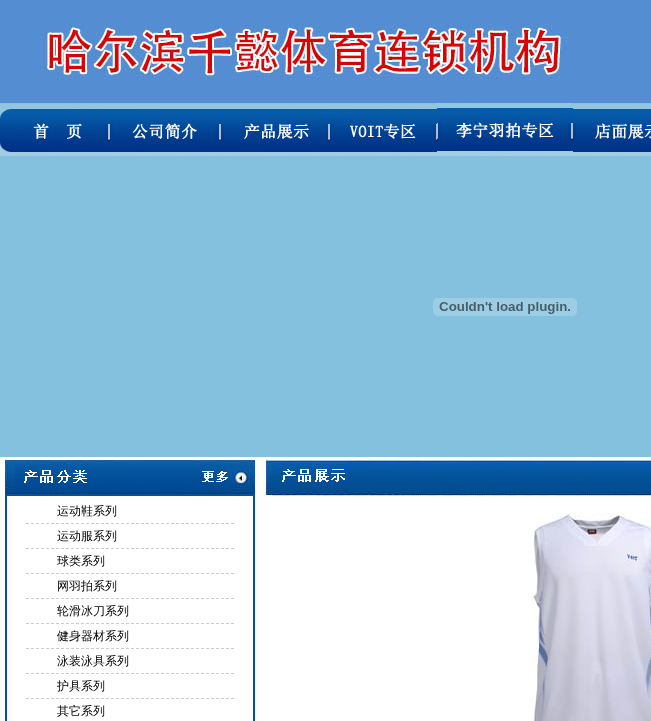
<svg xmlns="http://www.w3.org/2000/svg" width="651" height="721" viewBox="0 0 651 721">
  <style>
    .t1 { font: 500 12px WenQuanYi Zen Hei; fill: #000; }
  </style>
  <rect width="100%" height="100%" fill="#84c1de"/>
  <image x="0" y="0" width="651" height="103" href="images/1.png"/>
  <image x="0" y="104" width="108" height="52" href="images/2.png"/>
  <image x="108" y="104" width="111" height="52" href="images/3.png"/>
  <image x="219" y="104" width="110" height="52" href="images/4.png"/>
  <image x="329" y="104" width="108" height="52" href="images/5.png"/>
  <image x="437" y="103" width="136" height="53" href="images/6.png"/>
  <image x="573" y="104" width="78" height="52" href="images/7.png"/>
  <image x="433" y="298" width="144" height="18" href="images/8.png"/>
  <rect x="0" y="457" width="651" height="264" fill="#fff"/>
  <image x="0" y="457" width="256" height="42" href="images/9.png"/>
  <image x="5" y="499" width="250" height="222" href="images/10.png"/>
  <path d="M26 523.5H234" fill="none" stroke="#ccc" stroke-dasharray="3 2"/>
  <text x="57" y="515" class="t1">运动鞋系列</text>
  <path d="M26 548.5H234" fill="none" stroke="#ccc" stroke-dasharray="3 2"/>
  <text x="57" y="540" class="t1">运动服系列</text>
  <path d="M26 573.5H234" fill="none" stroke="#ccc" stroke-dasharray="3 2"/>
  <text x="57" y="565" class="t1">球类系列</text>
  <path d="M26 598.5H234" fill="none" stroke="#ccc" stroke-dasharray="3 2"/>
  <text x="57" y="590" class="t1">网羽拍系列</text>
  <path d="M26 623.5H234" fill="none" stroke="#ccc" stroke-dasharray="3 2"/>
  <text x="57" y="615" class="t1">轮滑冰刀系列</text>
  <path d="M26 648.5H234" fill="none" stroke="#ccc" stroke-dasharray="3 2"/>
  <text x="57" y="640" class="t1">健身器材系列</text>
  <path d="M26 673.5H234" fill="none" stroke="#ccc" stroke-dasharray="3 2"/>
  <text x="57" y="665" class="t1">泳装泳具系列</text>
  <path d="M26 698.5H234" fill="none" stroke="#ccc" stroke-dasharray="3 2"/>
  <text x="57" y="690" class="t1">护具系列</text>
  <text x="57" y="715" class="t1">其它系列</text>
  <image x="260" y="457" width="391" height="40" href="images/11.png"/>
  <image x="528" y="513" width="123" height="208" href="images/12.png"/>
</svg>
